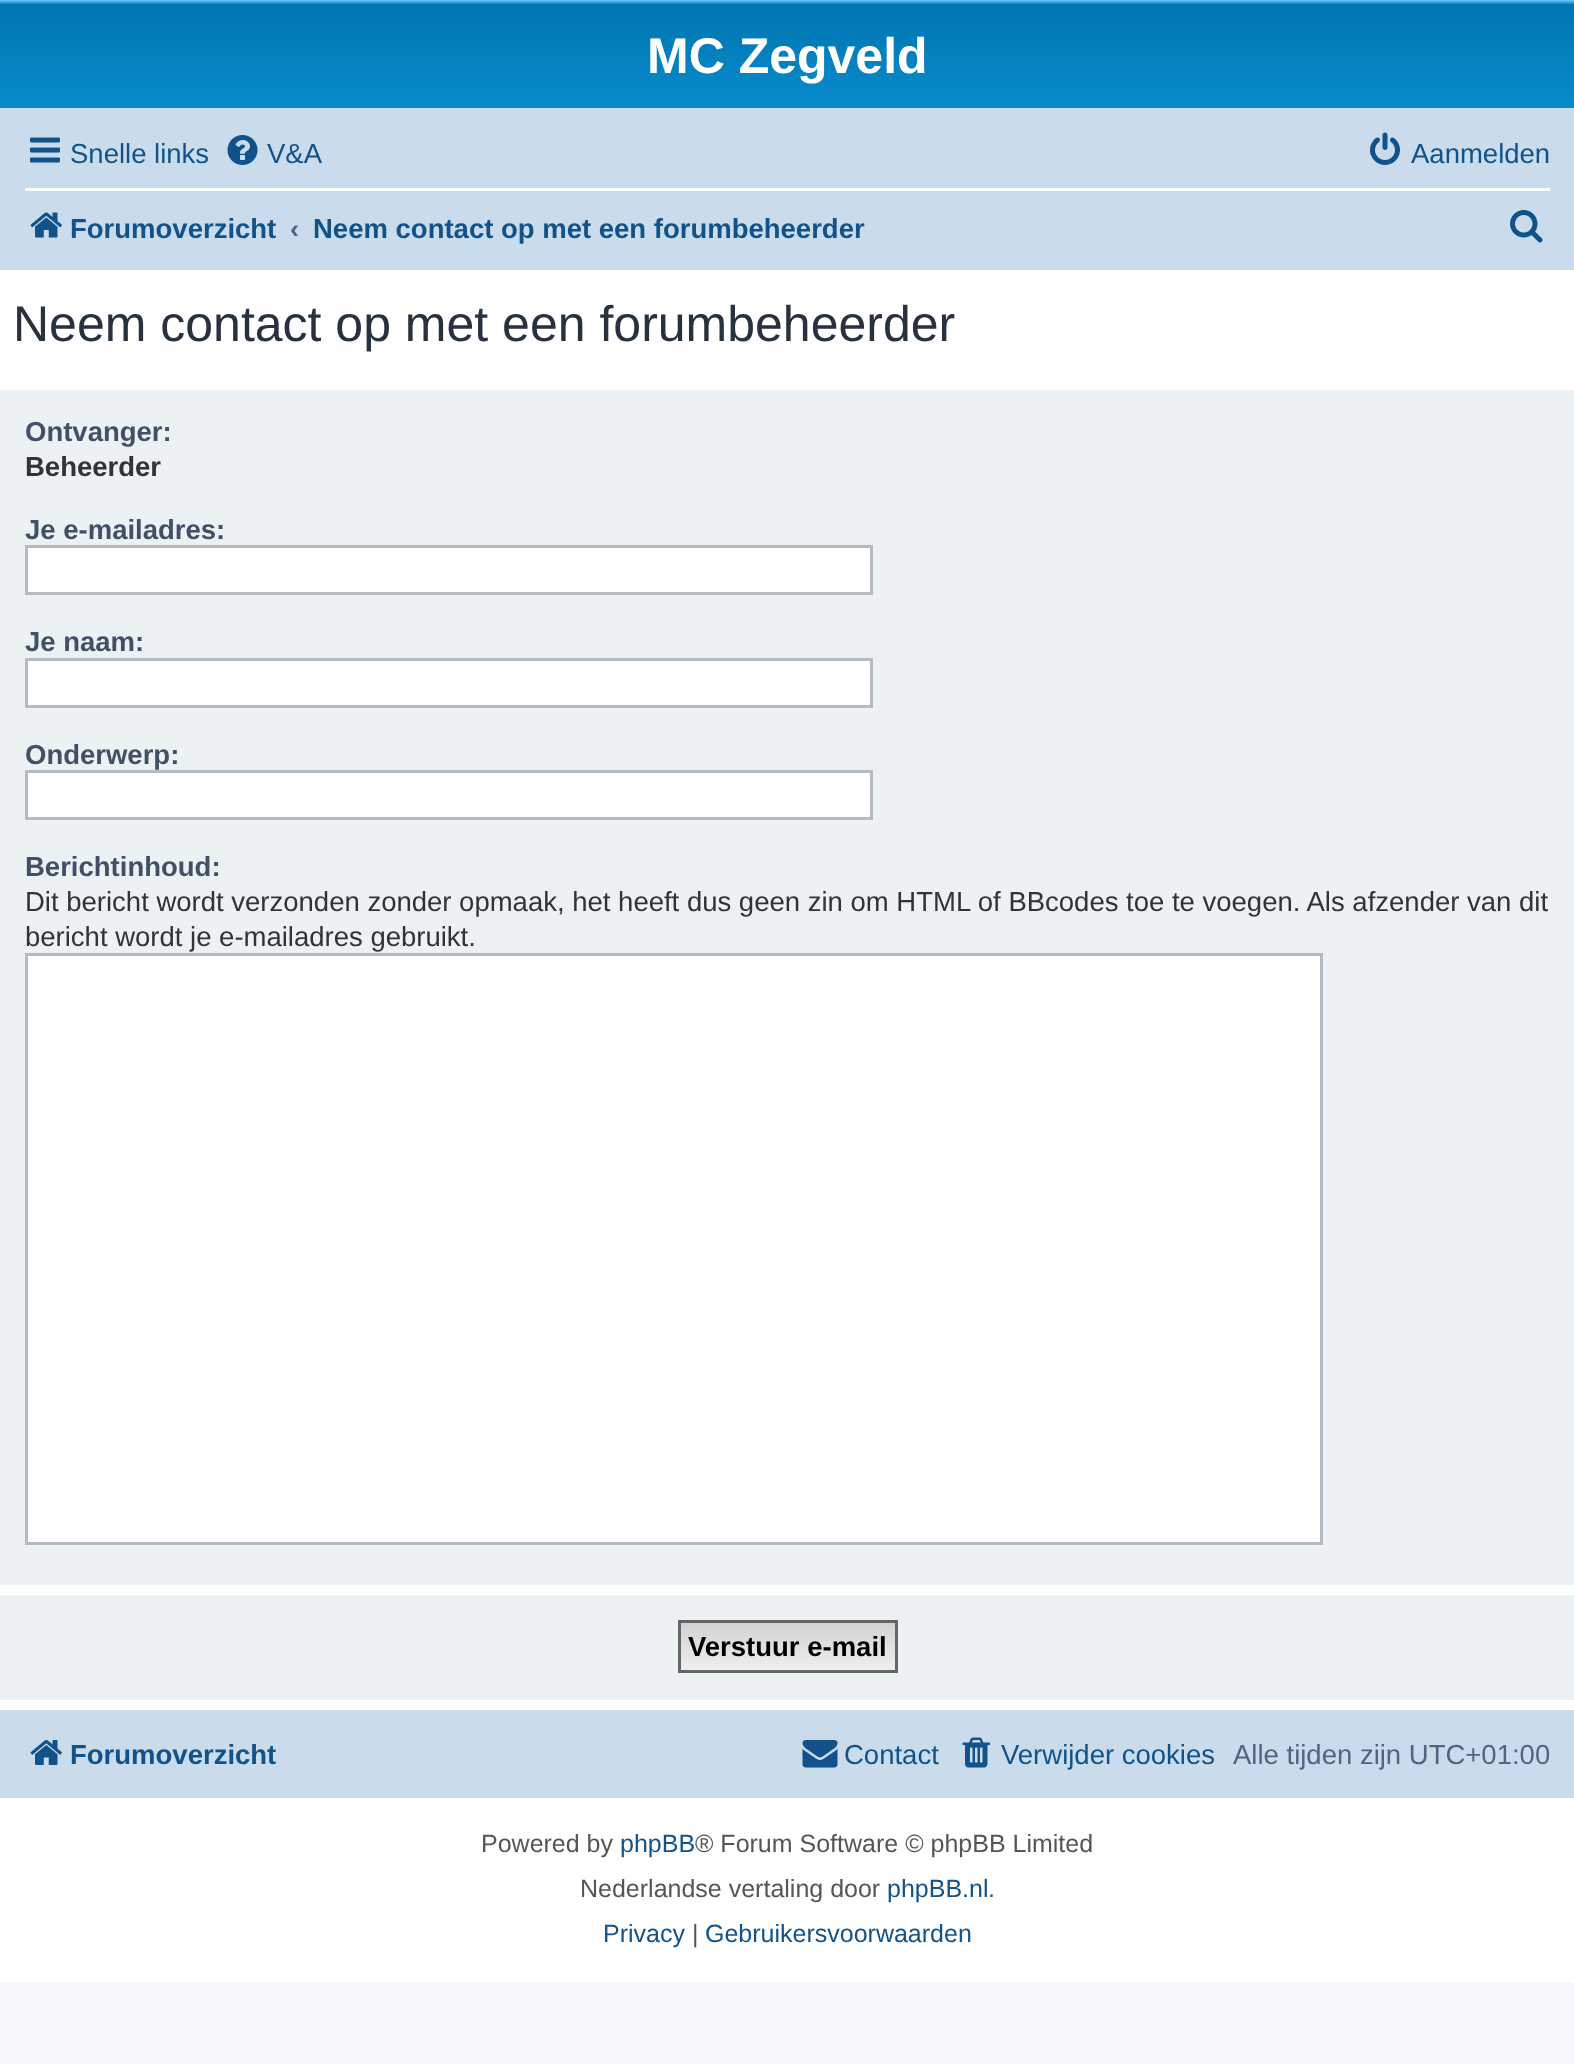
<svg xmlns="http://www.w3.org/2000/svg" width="1574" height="2064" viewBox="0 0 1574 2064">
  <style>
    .t1 { font: bold 50px Liberation Sans; fill: #fff; }
    .t2 { font: 27.5px Liberation Sans; fill: #105289; }
    .t3 { font: bold 27.5px Liberation Sans; fill: #105289; }
    .t4 { font: bold 27.5px Liberation Sans; fill: #536482; }
    .t5 { font: 50px Liberation Sans; fill: #28313f; }
    .t6 { font: bold 27.5px Liberation Sans; fill: #425067; }
    .t7 { font: bold 27.5px Liberation Sans; fill: #333; }
    .t8 { font: 27.5px Liberation Sans; fill: #333; }
    .t9 { font: bold 27.5px Liberation Sans; fill: #000; }
    .t10 { font: 27.5px Liberation Sans; fill: #536482; }
    .t11 { font: 25px Liberation Sans; fill: #555; }
    .t12 { font: 25px Liberation Sans; fill: #105289; }
  </style>
  <defs>
    <linearGradient id="g1" gradientUnits="userSpaceOnUse" x1="788" y1="0" x2="788" y2="230"><stop offset="0" stop-color="#6aceff"/><stop offset="0.02" stop-color="#0076b1"/><stop offset="1" stop-color="#12a3eb"/></linearGradient>
    <linearGradient id="g2" gradientUnits="userSpaceOnUse" x1="788" y1="1623" x2="788" y2="1670"><stop offset="0" stop-color="#d2d2d2"/><stop offset="1" stop-color="#efefef"/></linearGradient>
  </defs>
  <rect width="100%" height="100%" fill="#f5f7fa"/>
  <rect x="0" y="270" width="1574" height="1713" fill="#fff"/>
  <rect x="0" y="0" width="1574" height="108" fill="url(#g1)"/>
  <text x="647" y="73" class="t1">MC Zegveld</text>
  <rect x="0" y="108" width="1574" height="162" fill="#cadceb"/>
  <image x="30" y="137" width="30" height="26" href="images/1.png"/>
  <text x="70" y="163" class="t2">Snelle links</text>
  <image x="227" y="135" width="31" height="30" href="images/2.png"/>
  <text x="267" y="163" class="t2">V&amp;A</text>
  <image x="1370" y="132" width="30" height="33" href="images/3.png"/>
  <text x="1411" y="163" class="t2">Aanmelden</text>
  <rect x="25" y="188" width="1525" height="3" fill="#fff"/>
  <image x="30" y="212" width="32" height="26" href="images/4.png"/>
  <text x="70" y="238" class="t3">Forumoverzicht</text>
  <text x="290" y="238" class="t4">‹</text>
  <text x="313" y="238" class="t3">Neem contact op met een forumbeheerder</text>
  <image x="1510" y="210" width="33" height="33" href="images/5.png"/>
  <text x="13" y="341" class="t5">Neem contact op met een forumbeheerder</text>
  <rect x="0" y="390" width="1574" height="1195" fill="#ecf1f3"/>
  <text x="25" y="441" class="t6">Ontvanger:</text>
  <text x="25" y="476" class="t7">Beheerder</text>
  <text x="25" y="539" class="t6">Je e-mailadres:</text>
  <rect x="26.5" y="546.5" width="845" height="47" fill="#fff" stroke="#b4bac0" stroke-width="3"/>
  <text x="25" y="651" class="t6">Je naam:</text>
  <rect x="26.5" y="659.5" width="845" height="47" fill="#fff" stroke="#b4bac0" stroke-width="3"/>
  <text x="25" y="764" class="t6">Onderwerp:</text>
  <rect x="26.5" y="771.5" width="845" height="47" fill="#fff" stroke="#b4bac0" stroke-width="3"/>
  <text x="25" y="876" class="t6">Berichtinhoud:</text>
  <text x="25" y="911" class="t8">Dit bericht wordt verzonden zonder opmaak, het heeft dus geen zin om HTML of BBcodes toe te voegen. Als afzender van dit</text>
  <text x="25" y="946" class="t8">bericht wordt je e-mailadres gebruikt.</text>
  <rect x="26.5" y="954.5" width="1295" height="589" fill="#fff" stroke="#b4bac0" stroke-width="3"/>
  <rect x="0" y="1595" width="1574" height="105" fill="#ecf1f3"/>
  <rect x="681" y="1623" width="214" height="47" fill="url(#g2)"/>
  <rect x="679.5" y="1621.5" width="217" height="50" fill="none" stroke="#666" stroke-width="3"/>
  <text x="688" y="1656" class="t9">Verstuur e-mail</text>
  <rect x="0" y="1710" width="1574" height="88" fill="#cadceb"/>
  <image x="30" y="1739" width="32" height="26" href="images/6.png"/>
  <text x="70" y="1764" class="t3">Forumoverzicht</text>
  <image x="802" y="1740" width="36" height="28" href="images/7.png"/>
  <text x="844" y="1764" class="t2">Contact</text>
  <image x="962" y="1737" width="28" height="31" href="images/8.png"/>
  <text x="1001" y="1764" class="t2">Verwijder cookies</text>
  <text x="1233" y="1764" class="t10">Alle tijden zijn UTC+01:00</text>
  <text x="481" y="1852" class="t11">Powered by</text>
  <text x="620" y="1852" class="t12">phpBB</text>
  <text x="695" y="1852" class="t11">® Forum Software © phpBB Limited</text>
  <text x="580" y="1897" class="t11">Nederlandse vertaling door</text>
  <text x="887" y="1897" class="t12">phpBB.nl</text>
  <text x="988" y="1897" class="t11">.</text>
  <text x="603" y="1942" class="t12">Privacy</text>
  <text x="692" y="1942" class="t11">|</text>
  <text x="705" y="1942" class="t12">Gebruikersvoorwaarden</text>
</svg>
